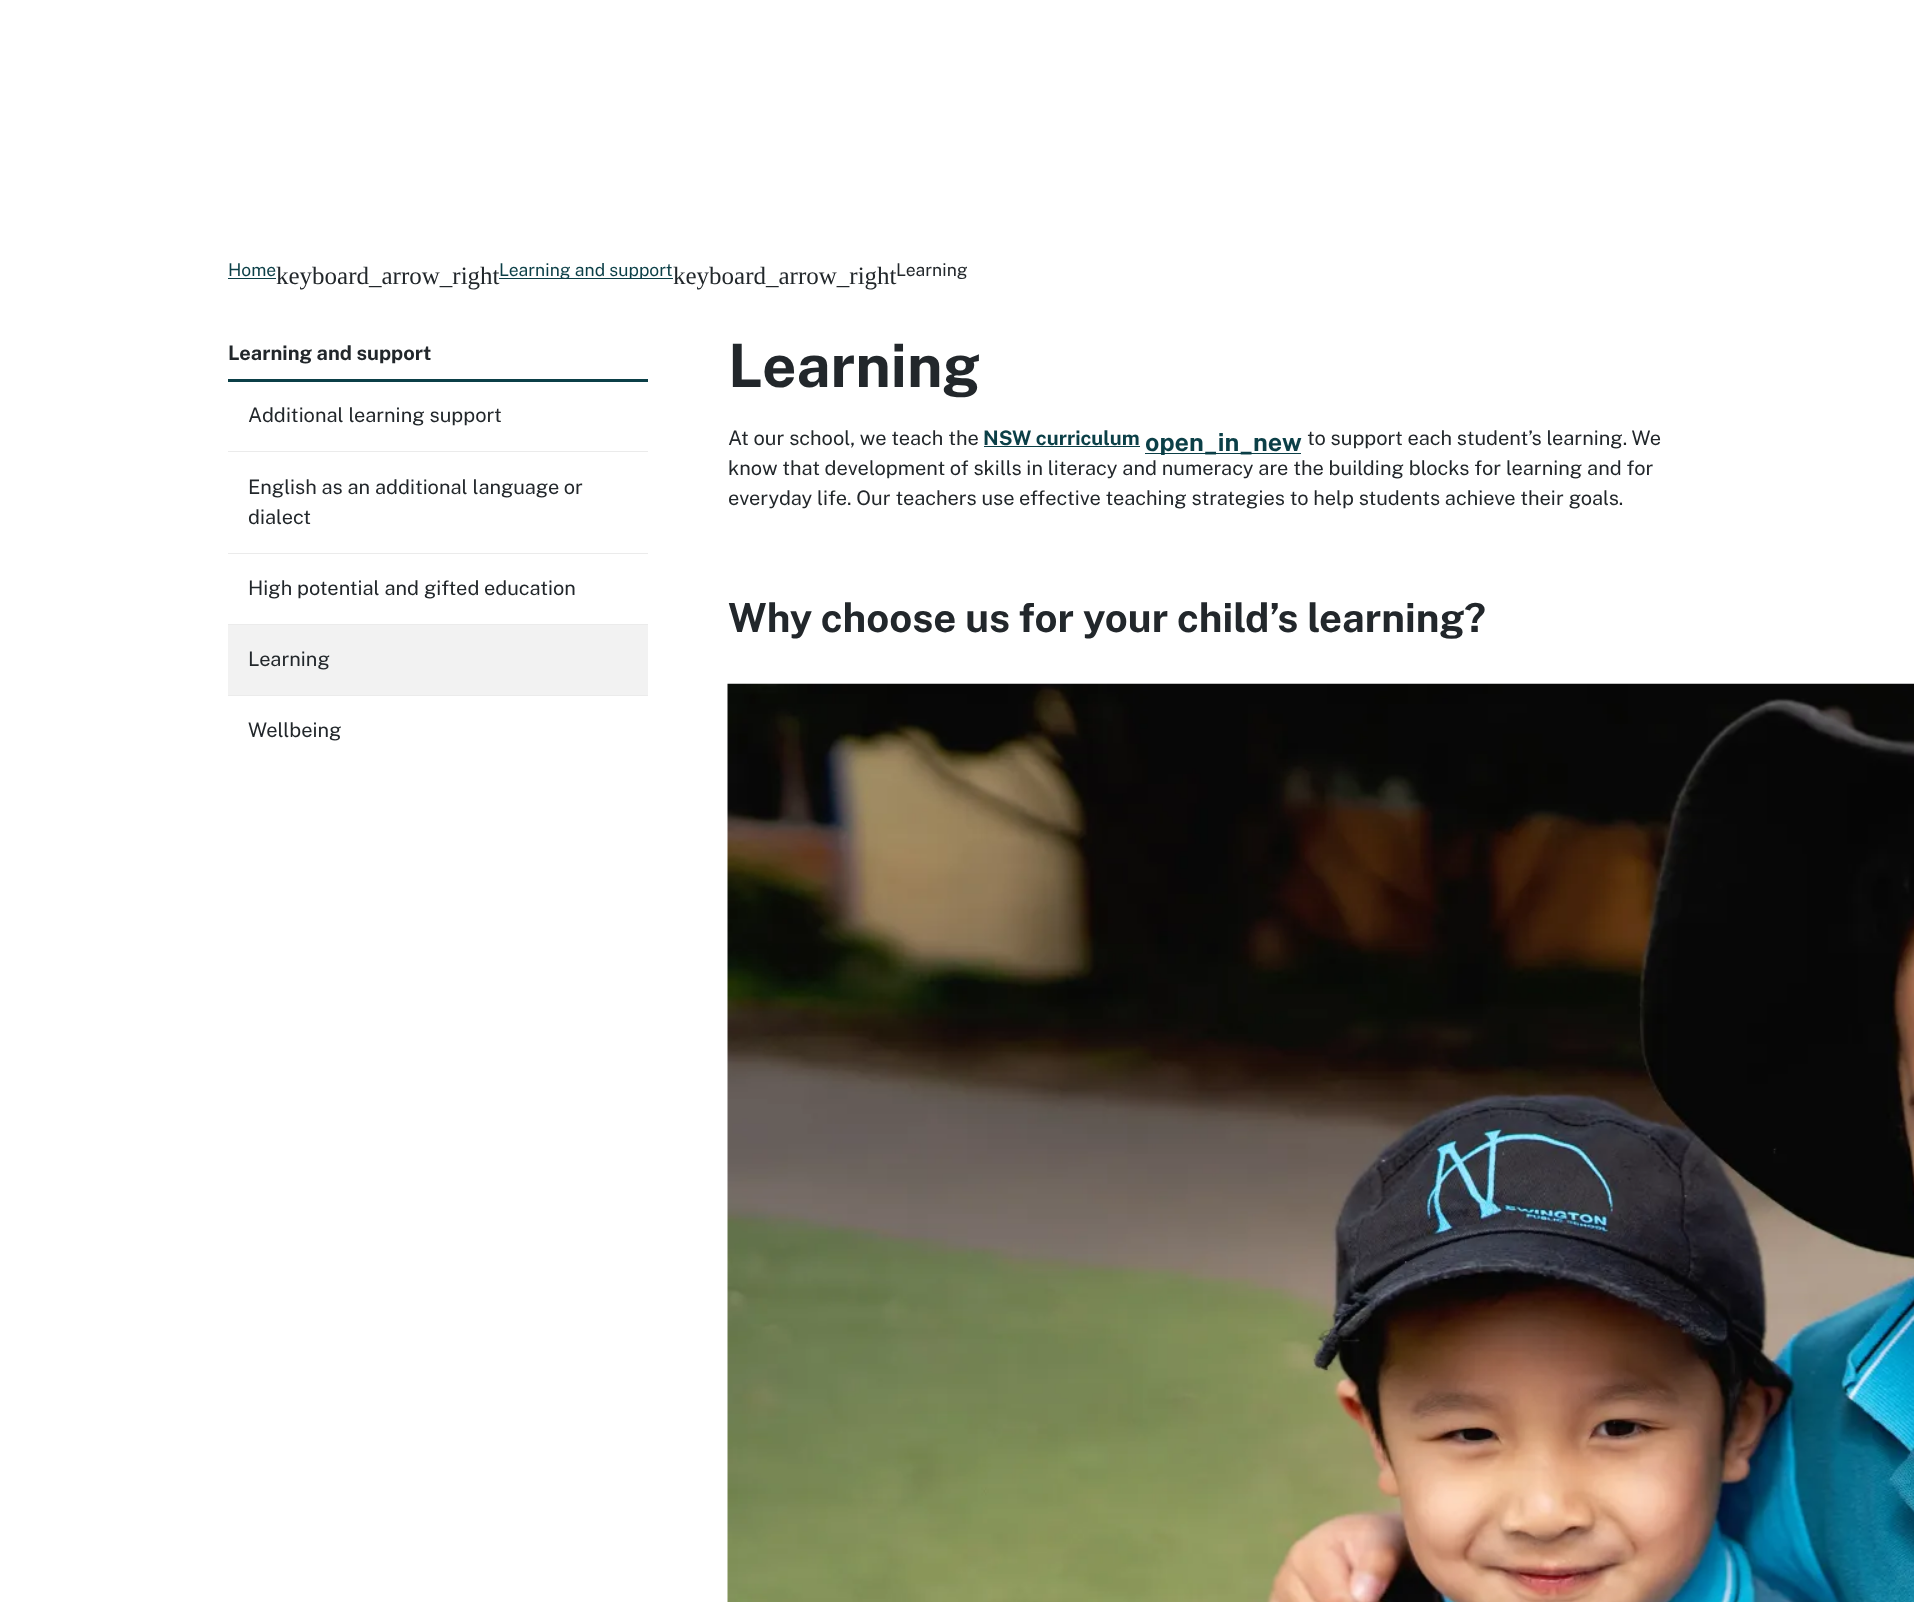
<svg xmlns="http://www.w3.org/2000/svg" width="1914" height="1602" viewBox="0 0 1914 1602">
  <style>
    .t1 { font: 17.5px Public Sans; fill: #0b3f47; }
    .t2 { font: 25px Liberation Serif; fill: #22272b; }
    .t3 { font: 17.5px Public Sans; fill: #22272b; }
    .t4 { font: bold 20px Public Sans; fill: #22272b; }
    .t5 { font: 20px Public Sans; fill: #22272b; }
    .t6 { font: bold 60px Public Sans; fill: #22272b; }
    .t7 { font: bold 20px Public Sans; fill: #0b3f47; }
    .t8 { font: bold 25px Public Sans; fill: #0b3f47; }
    .t9 { font: bold 40px Public Sans; fill: #22272b; }
  </style>
  <rect width="100%" height="100%" fill="#fff"/>
  <text x="228" y="276" class="t1">Home</text>
  <rect x="228" y="278" width="48" height="1" fill="#0b3f47"/>
  <rect x="499" y="278" width="174" height="1" fill="#0b3f47"/>
  <text x="276" y="284" class="t2">keyboard_arrow_right</text>
  <text x="499" y="276" class="t1">Learning and support</text>
  <text x="673" y="284" class="t2">keyboard_arrow_right</text>
  <text x="896" y="276" class="t3">Learning</text>
  <rect x="228" y="379" width="420" height="3" fill="#0b3f47"/>
  <text x="228" y="360" class="t4">Learning and support</text>
  <text x="248" y="422" class="t5">Additional learning support</text>
  <rect x="228" y="451" width="420" height="1" fill="#ebebeb"/>
  <text x="248" y="494" class="t5">English as an additional language or</text>
  <text x="248" y="524" class="t5">dialect</text>
  <rect x="228" y="553" width="420" height="1" fill="#ebebeb"/>
  <text x="248" y="595" class="t5">High potential and gifted education</text>
  <rect x="228" y="624" width="420" height="1" fill="#ebebeb"/>
  <rect x="228" y="625" width="420" height="70" fill="#f2f2f2"/>
  <text x="248" y="666" class="t5">Learning</text>
  <rect x="228" y="695" width="420" height="1" fill="#ebebeb"/>
  <text x="248" y="737" class="t5">Wellbeing</text>
  <text x="728" y="387" class="t6">Learning</text>
  <text x="728" y="445" class="t5">At our school, we teach the</text>
  <text x="983" y="445" class="t7">NSW curriculum</text>
  <rect x="1145" y="453" width="156" height="1" fill="#0b3f47"/>
  <text x="1145" y="451" class="t8">open_in_new</text>
  <rect x="984" y="446" width="156" height="1" fill="#0b3f47"/>
  <text x="1307" y="445" class="t5">to support each student’s learning. We</text>
  <text x="728" y="475" class="t5">know that development of skills in literacy and numeracy are the building blocks for learning and for</text>
  <text x="728" y="505" class="t5">everyday life. Our teachers use effective teaching strategies to help students achieve their goals.</text>
  <text x="728" y="632" class="t9">Why choose us for your child’s learning?</text>
  <image x="727" y="683" width="1187" height="919" href="images/1.png"/>
</svg>
